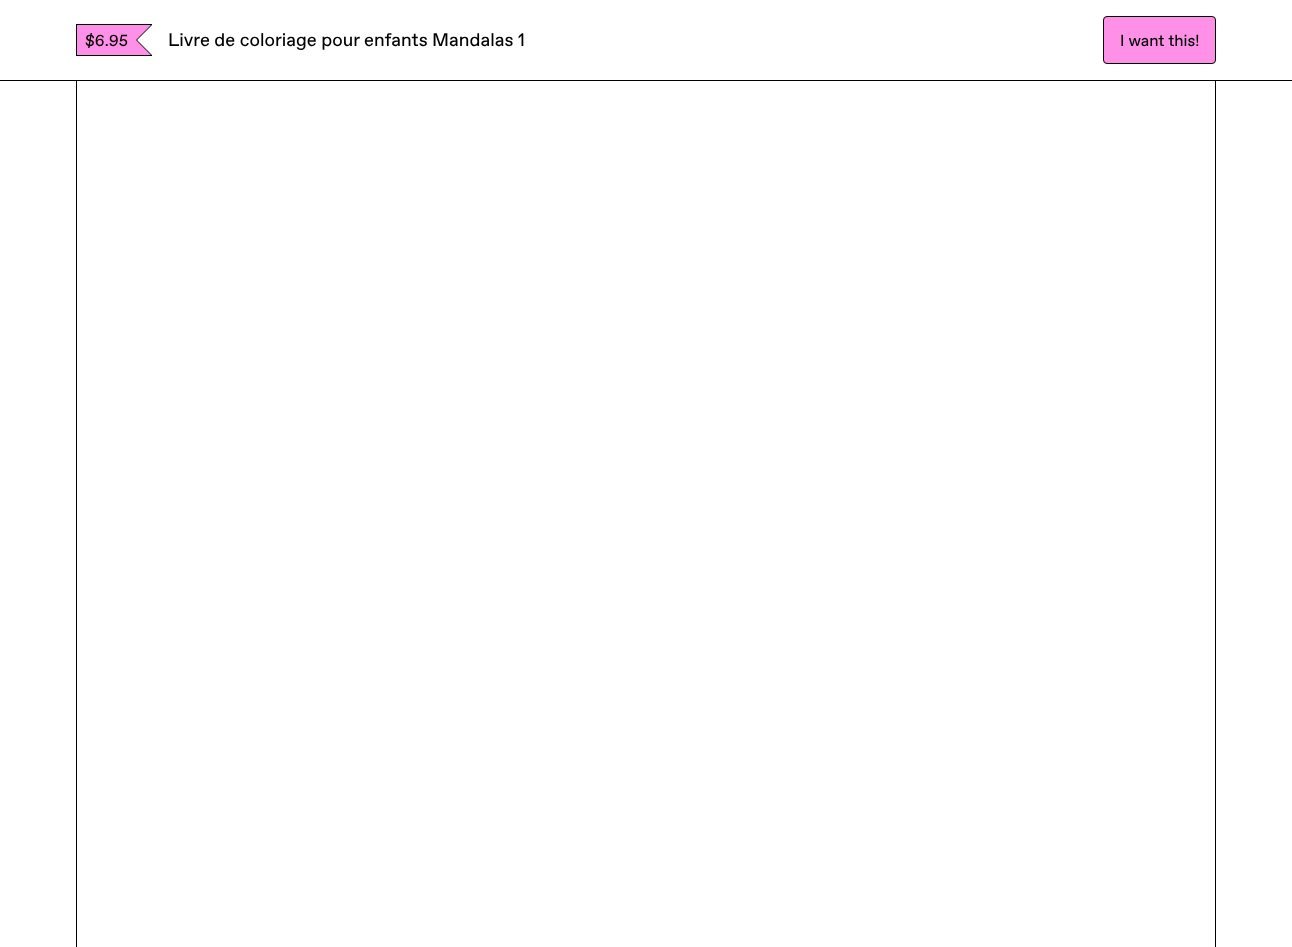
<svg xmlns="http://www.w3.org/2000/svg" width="1292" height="947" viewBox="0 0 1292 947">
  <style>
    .t1 { font: 16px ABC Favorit; fill: #000; }
    .t2 { font: 18.4px ABC Favorit; fill: #000; }
  </style>
  <rect width="100%" height="100%" fill="#fff"/>
  <rect x="76.5" y="64.5" width="1139" height="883" fill="none" stroke="#000"/>
  <rect x="0" y="80" width="1292" height="1" fill="#000"/>
  <rect x="76" y="64" width="1140" height="16" fill="#fff"/>
  <rect x="76" y="24" width="76" height="1" fill="#000"/>
  <rect x="76" y="55" width="76" height="1" fill="#000"/>
  <rect x="76" y="24" width="1" height="32" fill="#000"/>
  <rect x="77" y="25" width="59" height="30" fill="#ff90e8"/>
  <path d="M136 25H152L137 40ZM152 55H136L137 40Z" fill="#000"/>
  <rect x="136" y="39" width="1" height="2" fill="#000"/>
  <path d="M135 25H151L136 40ZM151 55H135L136 40Z" fill="#ff90e8"/>
  <text x="85" y="46" class="t1">$6.95</text>
  <text x="168" y="46" class="t2">Livre de coloriage pour enfants Mandalas 1</text>
  <rect x="1103.5" y="16.5" width="112" height="47" rx="3.5" fill="#ff90e8" stroke="#000"/>
  <text x="1120" y="46" class="t1">I want this!</text>
</svg>
